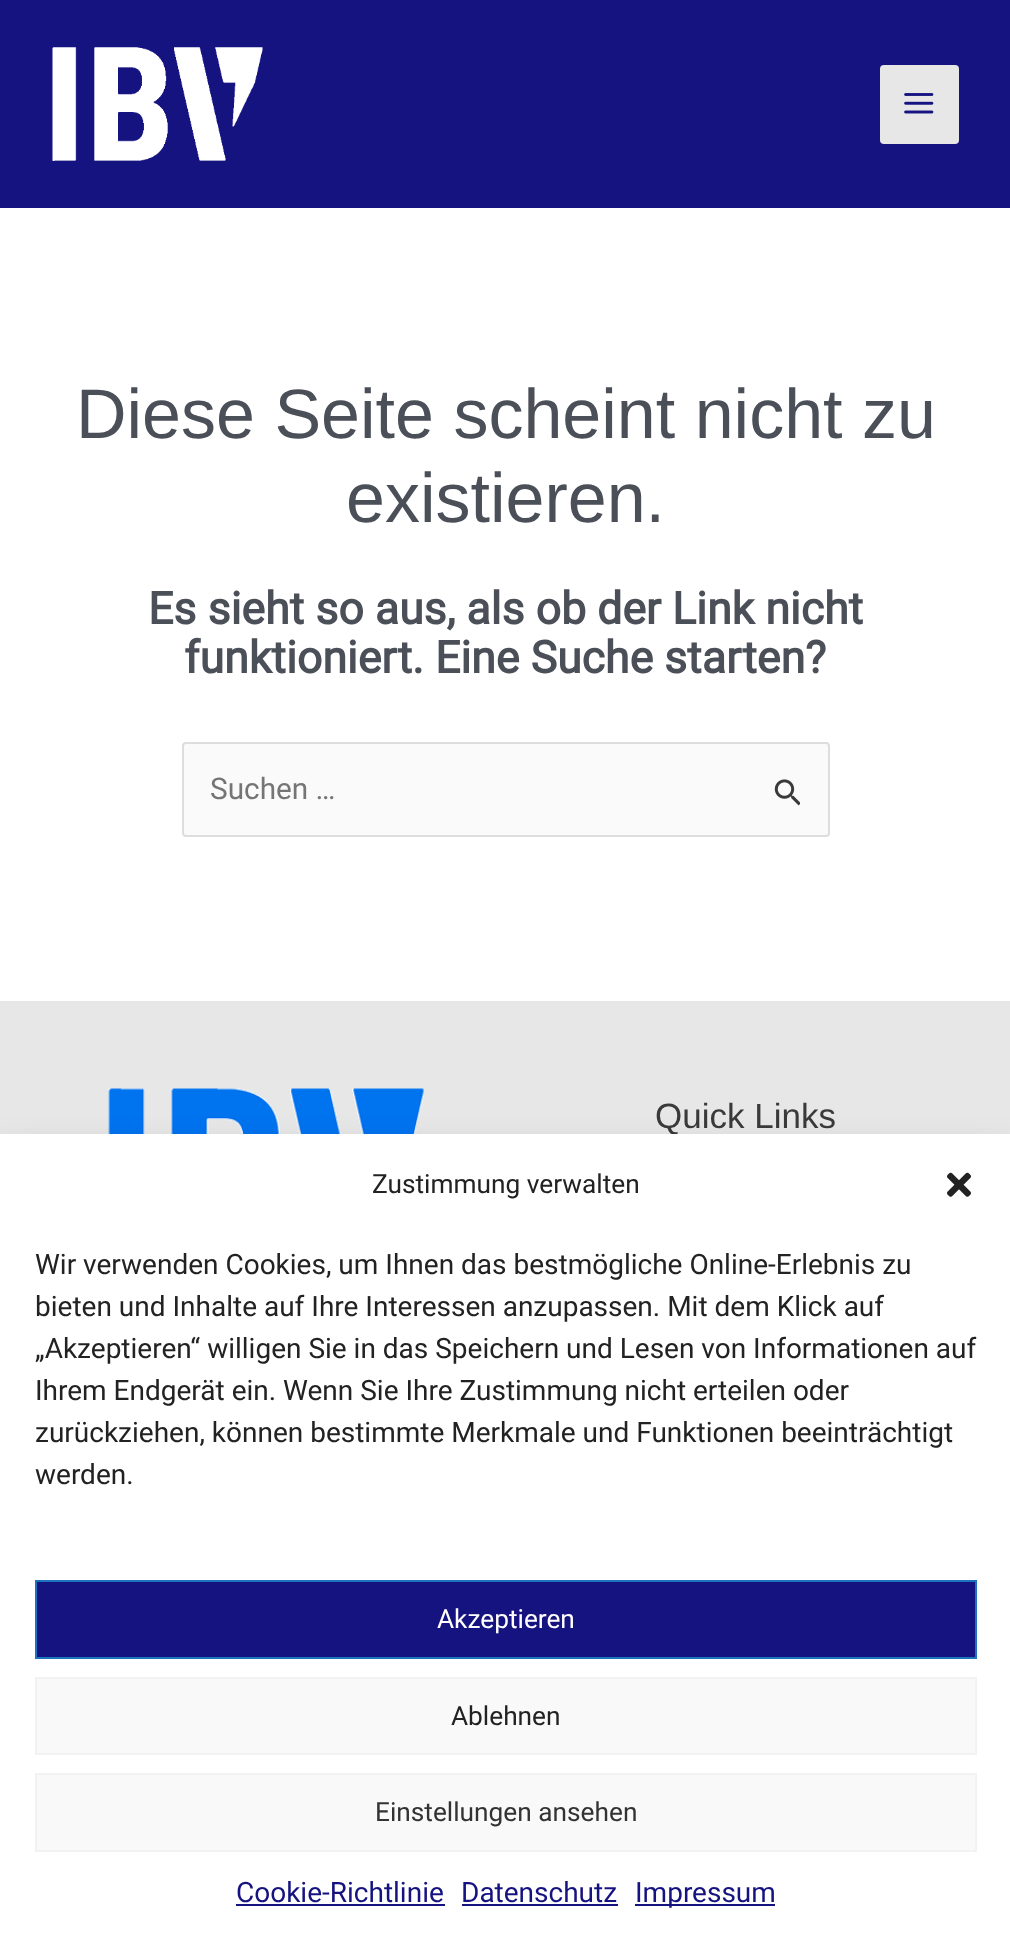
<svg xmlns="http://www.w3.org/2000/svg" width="1010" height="1943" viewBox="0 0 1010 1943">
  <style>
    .t1 { font: 70px Liberation Sans; fill: #4b4f58; }
    .t2 { font: bold 44.6px Roboto; fill: #4b4f58; }
    .t3 { font: 29.75px Roboto; fill: #757575; }
    .t4 { font: 35px Liberation Sans; fill: #3a3a3a; }
    .t5 { font: 26.25px Roboto; fill: #222; }
    .t6 { font: 28px Roboto; fill: #222; }
    .t7 { font: 26.25px Roboto; fill: #fff; }
    .t8 { font: 26.25px Roboto; fill: #333; }
    .t9 { font: 28px Roboto; fill: #151380; }
  </style>
  <rect width="100%" height="100%" fill="#fff"/>
  <rect x="0" y="0" width="1010" height="208" fill="#151380"/>
  <image x="52" y="47" width="211" height="114" href="images/1.png"/>
  <rect x="880" y="65" width="79" height="79" rx="4" fill="#e7e7e7"/>
  <image x="904" y="93" width="30" height="21" href="images/2.png"/>
  <text x="76" y="438" class="t1">Diese Seite scheint nicht zu</text>
  <text x="346" y="522" class="t1">existieren.</text>
  <text x="148" y="624" class="t2">Es sieht so aus, als ob der Link nicht</text>
  <text x="184" y="673" class="t2">funktioniert. Eine Suche starten?</text>
  <rect x="183" y="743" width="646" height="93" rx="3" fill="#fafafa" stroke="#ddd" stroke-width="2"/>
  <text x="210" y="799" class="t3">Suchen …</text>
  <image x="774" y="779" width="26" height="27" href="images/3.png"/>
  <rect x="0" y="1001" width="1010" height="133" fill="#e7e7e7"/>
  <image x="108" y="1088" width="316" height="46" href="images/4.png"/>
  <text x="655" y="1128" class="t4">Quick Links</text>
  <rect x="0" y="1152" width="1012" height="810" fill="#00000030" filter="blur(17.5px)"/>
  <rect x="0" y="1134" width="1010" height="809" fill="#fff"/>
  <text x="372" y="1193" class="t5">Zustimmung verwalten</text>
  <image x="947" y="1172" width="24" height="25" href="images/5.png"/>
  <text x="35" y="1274" class="t6">Wir verwenden Cookies, um Ihnen das bestmögliche Online-Erlebnis zu</text>
  <text x="35" y="1316" class="t6">bieten und Inhalte auf Ihre Interessen anzupassen. Mit dem Klick auf</text>
  <text x="35" y="1358" class="t6">„Akzeptieren“ willigen Sie in das Speichern und Lesen von Informationen auf</text>
  <text x="35" y="1400" class="t6">Ihrem Endgerät ein. Wenn Sie Ihre Zustimmung nicht erteilen oder</text>
  <text x="35" y="1442" class="t6">zurückziehen, können bestimmte Merkmale und Funktionen beeinträchtigt</text>
  <text x="35" y="1484" class="t6">werden.</text>
  <rect x="36" y="1581" width="940" height="77" fill="#151380" stroke="#1e73be" stroke-width="2"/>
  <text x="437" y="1628" class="t7">Akzeptieren</text>
  <rect x="36" y="1678" width="940" height="76" fill="#f9f9f9" stroke="#f2f2f2" stroke-width="2"/>
  <text x="451" y="1725" class="t5">Ablehnen</text>
  <rect x="36" y="1774" width="940" height="77" fill="#f9f9f9" stroke="#f2f2f2" stroke-width="2"/>
  <text x="375" y="1821" class="t8">Einstellungen ansehen</text>
  <text x="236" y="1902" class="t9">Cookie-Richtlinie</text>
  <rect x="236" y="1904" width="209" height="2" fill="#151380"/>
  <text x="461" y="1902" class="t9">Datenschutz</text>
  <rect x="462" y="1904" width="156" height="2" fill="#151380"/>
  <rect x="635" y="1904" width="140" height="2" fill="#151380"/>
  <text x="635" y="1902" class="t9">Impressum</text>
</svg>
